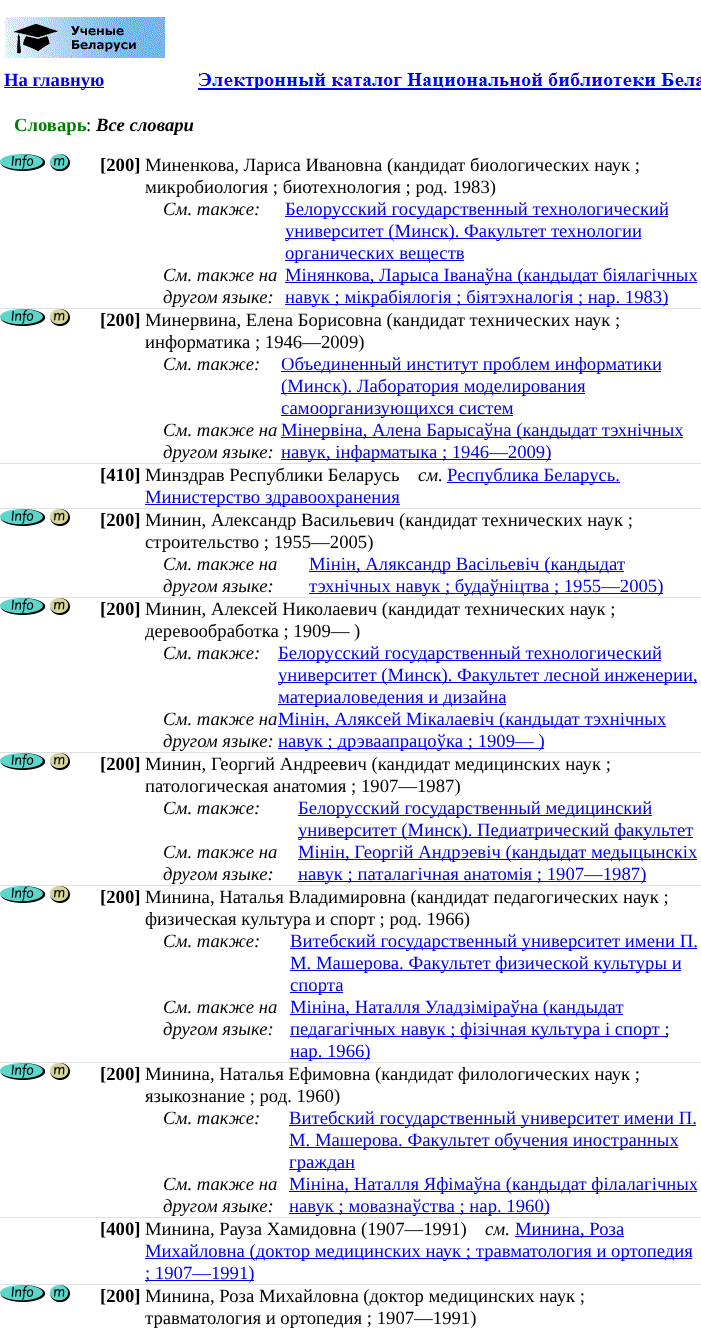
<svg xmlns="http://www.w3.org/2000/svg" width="701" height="1342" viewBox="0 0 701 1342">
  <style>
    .t1 { font: bold 18.7px Liberation Serif; fill: #00e; }
    .t2 { font: bold 18.7px Liberation Serif; fill: #008000; }
    .t3 { font: 18.7px Liberation Serif; fill: #000; }
    .t4 { font: italic bold 18.7px Liberation Serif; fill: #000; }
    .t5 { font: bold 18.7px Liberation Serif; fill: #000; }
    .t6 { font: italic 18.7px Liberation Serif; fill: #000; }
    .t7 { font: 18.7px Liberation Serif; fill: #00e; }
  </style>
  <rect width="100%" height="100%" fill="#fff"/>
  <image x="5" y="17" width="160" height="41" href="images/1.png"/>
  <rect x="4" y="87" width="100" height="1" fill="#00e"/>
  <text x="4" y="86" class="t1">На главную</text>
  <image x="198" y="72" width="503" height="18" href="images/2.png"/>
  <text x="14" y="131" class="t2">Словарь</text>
  <text x="86" y="131" class="t3">:</text>
  <text x="96" y="131" class="t4">Все словари</text>
  <image x="0" y="154" width="45" height="17" href="images/3.png"/>
  <image x="50" y="154" width="20" height="17" href="images/4.png"/>
  <text x="100" y="171" class="t5">[200]</text>
  <rect x="0" y="308" width="701" height="1" fill="#e0e0e0"/>
  <text x="145" y="171" class="t3">Миненкова, Лариса Ивановна (кандидат биологических наук ;</text>
  <text x="145" y="193" class="t3">микробиология ; биотехнология ; род. 1983)</text>
  <text x="163" y="215" class="t6">См. также:</text>
  <rect x="285" y="216" width="383" height="1" fill="#00e"/>
  <text x="285" y="215" class="t7">Белорусский государственный технологический</text>
  <rect x="285" y="238" width="356" height="1" fill="#00e"/>
  <text x="285" y="237" class="t7">университет (Минск). Факультет технологии</text>
  <rect x="285" y="260" width="179" height="1" fill="#00e"/>
  <text x="285" y="259" class="t7">органических веществ</text>
  <text x="163" y="281" class="t6">См. также на</text>
  <text x="163" y="303" class="t6">другом языке:</text>
  <rect x="285" y="282" width="412" height="1" fill="#00e"/>
  <text x="285" y="281" class="t7">Мінянкова, Ларыса Іванаўна (кандыдат біялагічных</text>
  <rect x="285" y="304" width="383" height="1" fill="#00e"/>
  <text x="285" y="303" class="t7">навук ; мікрабіялогія ; біятэхналогія ; нар. 1983)</text>
  <image x="0" y="309" width="45" height="17" href="images/3.png"/>
  <image x="50" y="309" width="20" height="17" href="images/5.png"/>
  <text x="100" y="326" class="t5">[200]</text>
  <rect x="0" y="463" width="701" height="1" fill="#e0e0e0"/>
  <text x="145" y="326" class="t3">Минервина, Елена Борисовна (кандидат технических наук ;</text>
  <text x="145" y="348" class="t3">информатика ; 1946—2009)</text>
  <text x="163" y="370" class="t6">См. также:</text>
  <rect x="281" y="371" width="380" height="1" fill="#00e"/>
  <text x="281" y="370" class="t7">Объединенный институт проблем информатики</text>
  <rect x="281" y="393" width="304" height="1" fill="#00e"/>
  <text x="281" y="392" class="t7">(Минск). Лаборатория моделирования</text>
  <rect x="281" y="415" width="232" height="1" fill="#00e"/>
  <text x="281" y="414" class="t7">самоорганизующихся систем</text>
  <text x="163" y="436" class="t6">См. также на</text>
  <text x="163" y="458" class="t6">другом языке:</text>
  <rect x="281" y="437" width="402" height="1" fill="#00e"/>
  <text x="281" y="436" class="t7">Мінервіна, Алена Барысаўна (кандыдат тэхнічных</text>
  <rect x="281" y="459" width="270" height="1" fill="#00e"/>
  <text x="281" y="458" class="t7">навук, інфарматыка ; 1946—2009)</text>
  <text x="100" y="481" class="t5">[410]</text>
  <rect x="0" y="508" width="701" height="1" fill="#e0e0e0"/>
  <text x="145" y="481" class="t3">Минздрав Республики Беларусь</text>
  <text x="418" y="481" class="t6">см.</text>
  <rect x="447" y="482" width="173" height="1" fill="#00e"/>
  <text x="447" y="481" class="t7">Республика Беларусь.</text>
  <rect x="145" y="504" width="255" height="1" fill="#00e"/>
  <text x="145" y="503" class="t7">Министерство здравоохранения</text>
  <image x="0" y="509" width="45" height="17" href="images/3.png"/>
  <image x="50" y="509" width="20" height="17" href="images/5.png"/>
  <text x="100" y="526" class="t5">[200]</text>
  <rect x="0" y="597" width="701" height="1" fill="#e0e0e0"/>
  <text x="145" y="526" class="t3">Минин, Александр Васильевич (кандидат технических наук ;</text>
  <text x="145" y="548" class="t3">строительство ; 1955—2005)</text>
  <text x="163" y="570" class="t6">См. также на</text>
  <text x="163" y="592" class="t6">другом языке:</text>
  <rect x="309" y="571" width="315" height="1" fill="#00e"/>
  <text x="309" y="570" class="t7">Мінін, Аляксандр Васільевіч (кандыдат</text>
  <rect x="309" y="593" width="354" height="1" fill="#00e"/>
  <text x="309" y="592" class="t7">тэхнічных навук ; будаўніцтва ; 1955—2005)</text>
  <image x="0" y="598" width="45" height="17" href="images/3.png"/>
  <image x="50" y="598" width="20" height="17" href="images/5.png"/>
  <text x="100" y="615" class="t5">[200]</text>
  <rect x="0" y="752" width="701" height="1" fill="#e0e0e0"/>
  <text x="145" y="615" class="t3">Минин, Алексей Николаевич (кандидат технических наук ;</text>
  <text x="145" y="637" class="t3">деревообработка ; 1909— )</text>
  <text x="163" y="659" class="t6">См. также:</text>
  <rect x="278" y="660" width="383" height="1" fill="#00e"/>
  <text x="278" y="659" class="t7">Белорусский государственный технологический</text>
  <rect x="278" y="682" width="419" height="1" fill="#00e"/>
  <text x="278" y="681" class="t7">университет (Минск). Факультет лесной инженерии,</text>
  <rect x="278" y="704" width="228" height="1" fill="#00e"/>
  <text x="278" y="703" class="t7">материаловедения и дизайна</text>
  <text x="163" y="725" class="t6">См. также на</text>
  <text x="163" y="747" class="t6">другом языке:</text>
  <rect x="278" y="726" width="388" height="1" fill="#00e"/>
  <text x="278" y="725" class="t7">Мінін, Аляксей Мікалаевіч (кандыдат тэхнічных</text>
  <rect x="278" y="748" width="266" height="1" fill="#00e"/>
  <text x="278" y="747" class="t7">навук ; дрэваапрацоўка ; 1909— )</text>
  <image x="0" y="753" width="45" height="17" href="images/3.png"/>
  <image x="50" y="753" width="20" height="17" href="images/5.png"/>
  <text x="100" y="770" class="t5">[200]</text>
  <rect x="0" y="885" width="701" height="1" fill="#e0e0e0"/>
  <text x="145" y="770" class="t3">Минин, Георгий Андреевич (кандидат медицинских наук ;</text>
  <text x="145" y="792" class="t3">патологическая анатомия ; 1907—1987)</text>
  <text x="163" y="814" class="t6">См. также:</text>
  <rect x="298" y="815" width="354" height="1" fill="#00e"/>
  <text x="298" y="814" class="t7">Белорусский государственный медицинский</text>
  <rect x="298" y="837" width="395" height="1" fill="#00e"/>
  <text x="298" y="836" class="t7">университет (Минск). Педиатрический факультет</text>
  <text x="163" y="858" class="t6">См. также на</text>
  <text x="163" y="880" class="t6">другом языке:</text>
  <rect x="298" y="859" width="399" height="1" fill="#00e"/>
  <text x="298" y="858" class="t7">Мінін, Георгій Андрэевіч (кандыдат медыцынскіх</text>
  <rect x="298" y="881" width="348" height="1" fill="#00e"/>
  <text x="298" y="880" class="t7">навук ; паталагічная анатомія ; 1907—1987)</text>
  <image x="0" y="886" width="45" height="17" href="images/3.png"/>
  <image x="50" y="886" width="20" height="17" href="images/5.png"/>
  <text x="100" y="903" class="t5">[200]</text>
  <rect x="0" y="1062" width="701" height="1" fill="#e0e0e0"/>
  <text x="145" y="903" class="t3">Минина, Наталья Владимировна (кандидат педагогических наук ;</text>
  <text x="145" y="925" class="t3">физическая культура и спорт ; род. 1966)</text>
  <text x="163" y="947" class="t6">См. также:</text>
  <rect x="290" y="948" width="407" height="1" fill="#00e"/>
  <text x="290" y="947" class="t7">Витебский государственный университет имени П.</text>
  <rect x="290" y="970" width="391" height="1" fill="#00e"/>
  <text x="290" y="969" class="t7">М. Машерова. Факультет физической культуры и</text>
  <rect x="290" y="992" width="53" height="1" fill="#00e"/>
  <text x="290" y="991" class="t7">спорта</text>
  <text x="163" y="1013" class="t6">См. также на</text>
  <text x="163" y="1035" class="t6">другом языке:</text>
  <rect x="290" y="1014" width="333" height="1" fill="#00e"/>
  <text x="290" y="1013" class="t7">Мініна, Наталля Уладзіміраўна (кандыдат</text>
  <rect x="290" y="1036" width="378" height="1" fill="#00e"/>
  <text x="290" y="1035" class="t7">педагагічных навук ; фізічная культура і спорт ;</text>
  <rect x="290" y="1058" width="80" height="1" fill="#00e"/>
  <text x="290" y="1057" class="t7">нар. 1966)</text>
  <image x="0" y="1063" width="45" height="17" href="images/3.png"/>
  <image x="50" y="1063" width="20" height="17" href="images/5.png"/>
  <text x="100" y="1080" class="t5">[200]</text>
  <rect x="0" y="1217" width="701" height="1" fill="#e0e0e0"/>
  <text x="145" y="1080" class="t3">Минина, Наталья Ефимовна (кандидат филологических наук ;</text>
  <text x="145" y="1102" class="t3">языкознание ; род. 1960)</text>
  <text x="163" y="1124" class="t6">См. также:</text>
  <rect x="289" y="1125" width="407" height="1" fill="#00e"/>
  <text x="289" y="1124" class="t7">Витебский государственный университет имени П.</text>
  <rect x="289" y="1147" width="389" height="1" fill="#00e"/>
  <text x="289" y="1146" class="t7">М. Машерова. Факультет обучения иностранных</text>
  <rect x="289" y="1169" width="66" height="1" fill="#00e"/>
  <text x="289" y="1168" class="t7">граждан</text>
  <text x="163" y="1190" class="t6">См. также на</text>
  <text x="163" y="1212" class="t6">другом языке:</text>
  <rect x="289" y="1191" width="408" height="1" fill="#00e"/>
  <text x="289" y="1190" class="t7">Мініна, Наталля Яфімаўна (кандыдат філалагічных</text>
  <rect x="289" y="1213" width="260" height="1" fill="#00e"/>
  <text x="289" y="1212" class="t7">навук ; мовазнаўства ; нар. 1960)</text>
  <text x="100" y="1235" class="t5">[400]</text>
  <rect x="0" y="1284" width="701" height="1" fill="#e0e0e0"/>
  <text x="145" y="1235" class="t3">Минина, Рауза Хамидовна (1907—1991)</text>
  <text x="485" y="1235" class="t6">см.</text>
  <rect x="515" y="1236" width="109" height="1" fill="#00e"/>
  <text x="515" y="1235" class="t7">Минина, Роза</text>
  <rect x="145" y="1258" width="547" height="1" fill="#00e"/>
  <text x="145" y="1257" class="t7">Михайловна (доктор медицинских наук ; травматология и ортопедия</text>
  <rect x="145" y="1280" width="109" height="1" fill="#00e"/>
  <text x="145" y="1279" class="t7">; 1907—1991)</text>
  <image x="0" y="1285" width="45" height="17" href="images/3.png"/>
  <image x="50" y="1285" width="20" height="17" href="images/4.png"/>
  <text x="100" y="1302" class="t5">[200]</text>
  <text x="145" y="1302" class="t3">Минина, Роза Михайловна (доктор медицинских наук ;</text>
  <text x="145" y="1324" class="t3">травматология и ортопедия ; 1907—1991)</text>
</svg>
